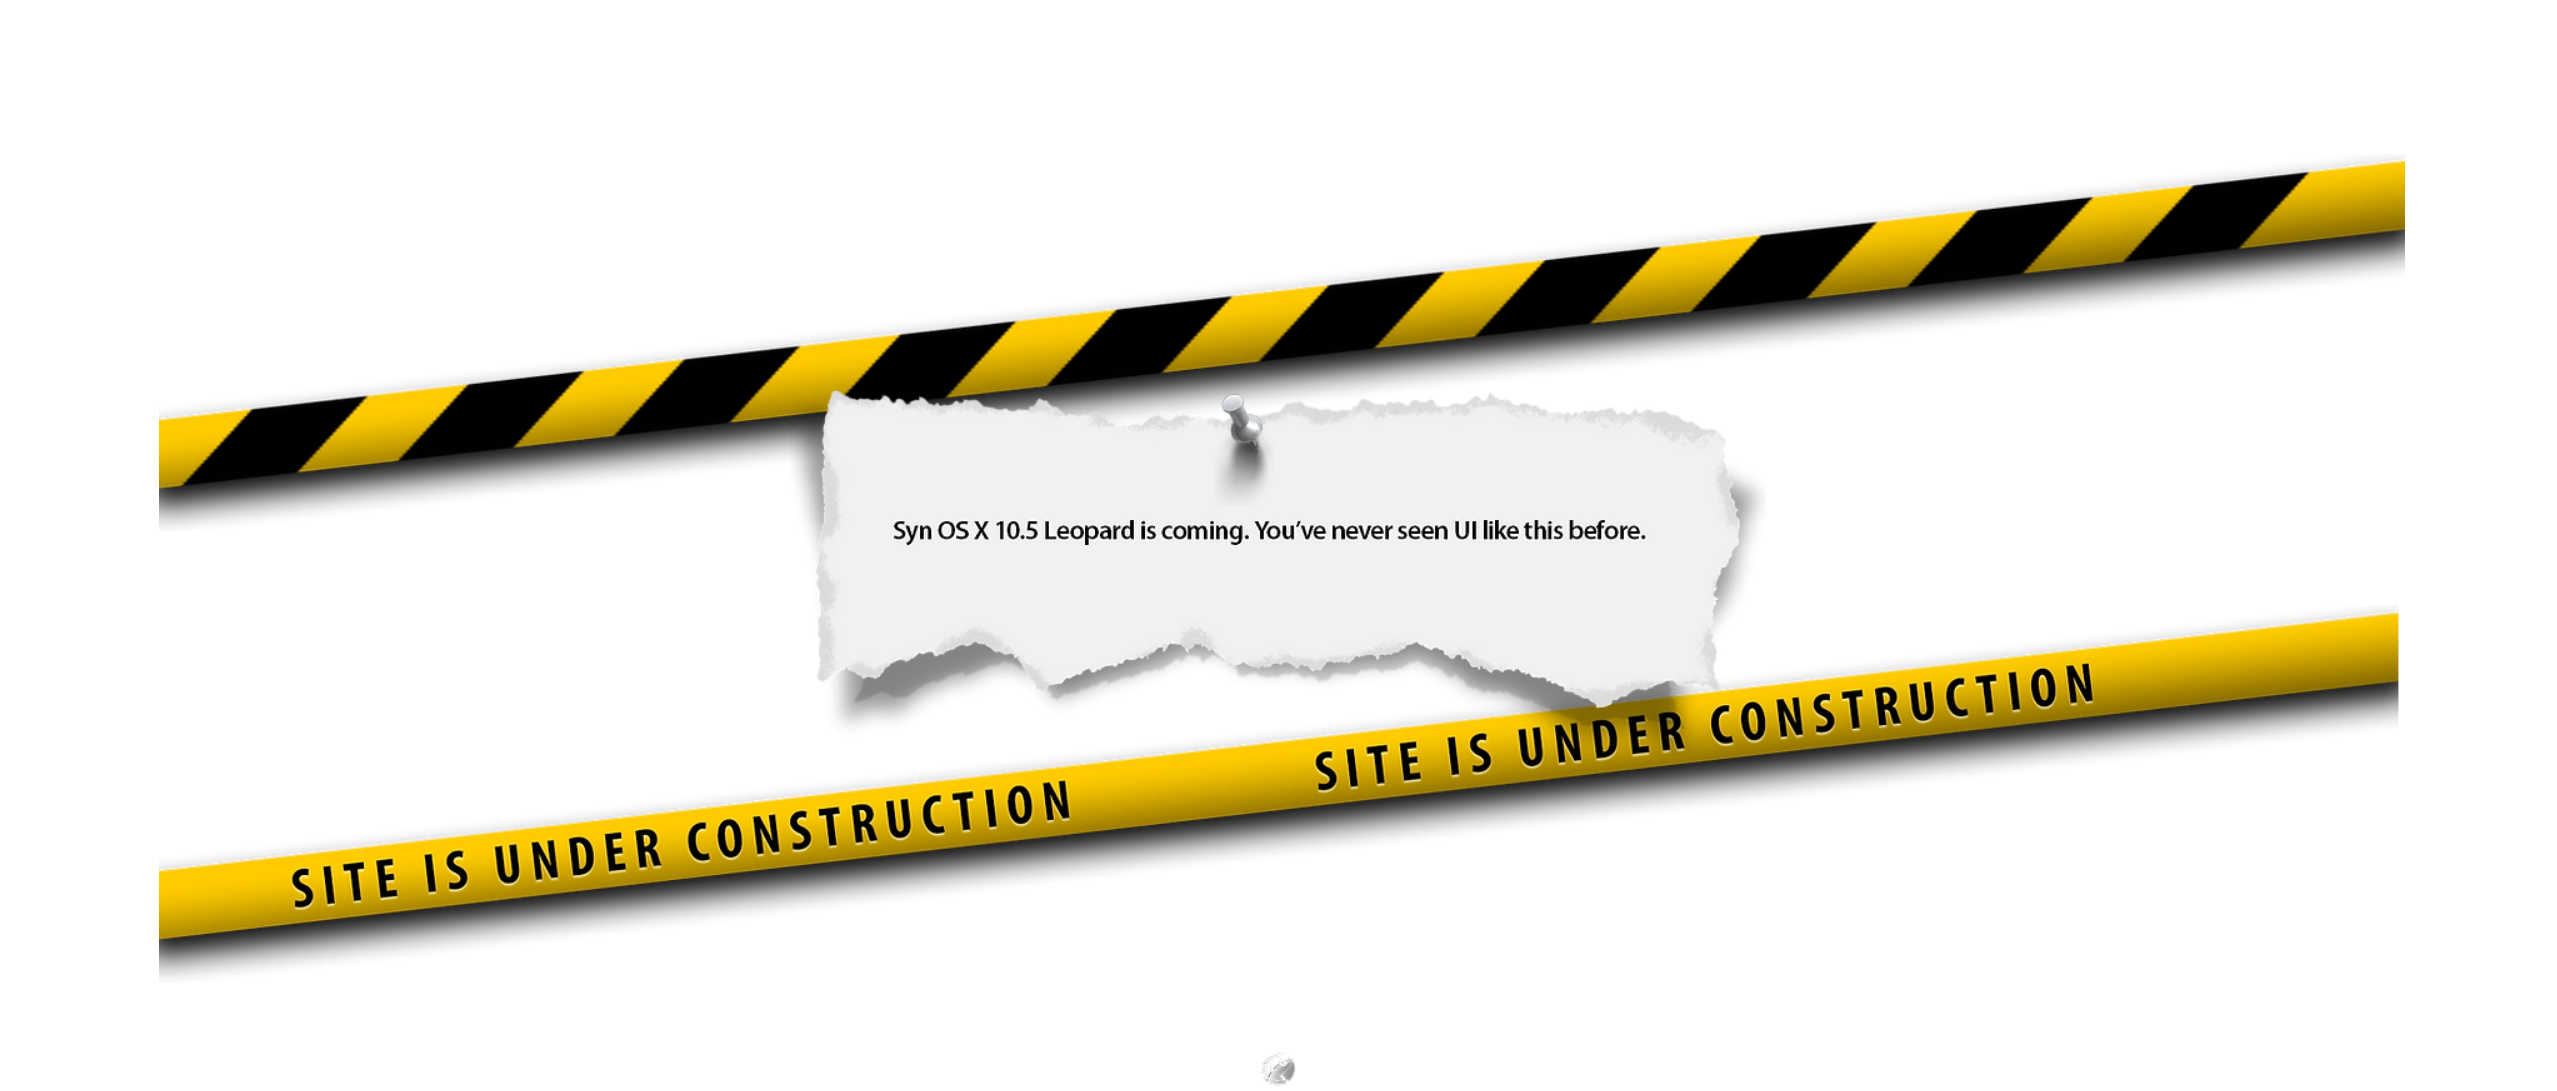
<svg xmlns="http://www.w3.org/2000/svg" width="2557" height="1091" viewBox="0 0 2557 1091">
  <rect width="100%" height="100%" fill="#fff"/>
  <image x="159" y="154" width="2246" height="377" href="images/1.png"/>
  <image x="159" y="605" width="2240" height="378" href="images/4.png"/>
  <image x="789" y="390" width="977" height="366" href="images/2.png"/>
  <image x="1214" y="393" width="60" height="113" href="images/3.png"/>
  <image x="1261" y="1052" width="35" height="34" href="images/5.png"/>
</svg>
